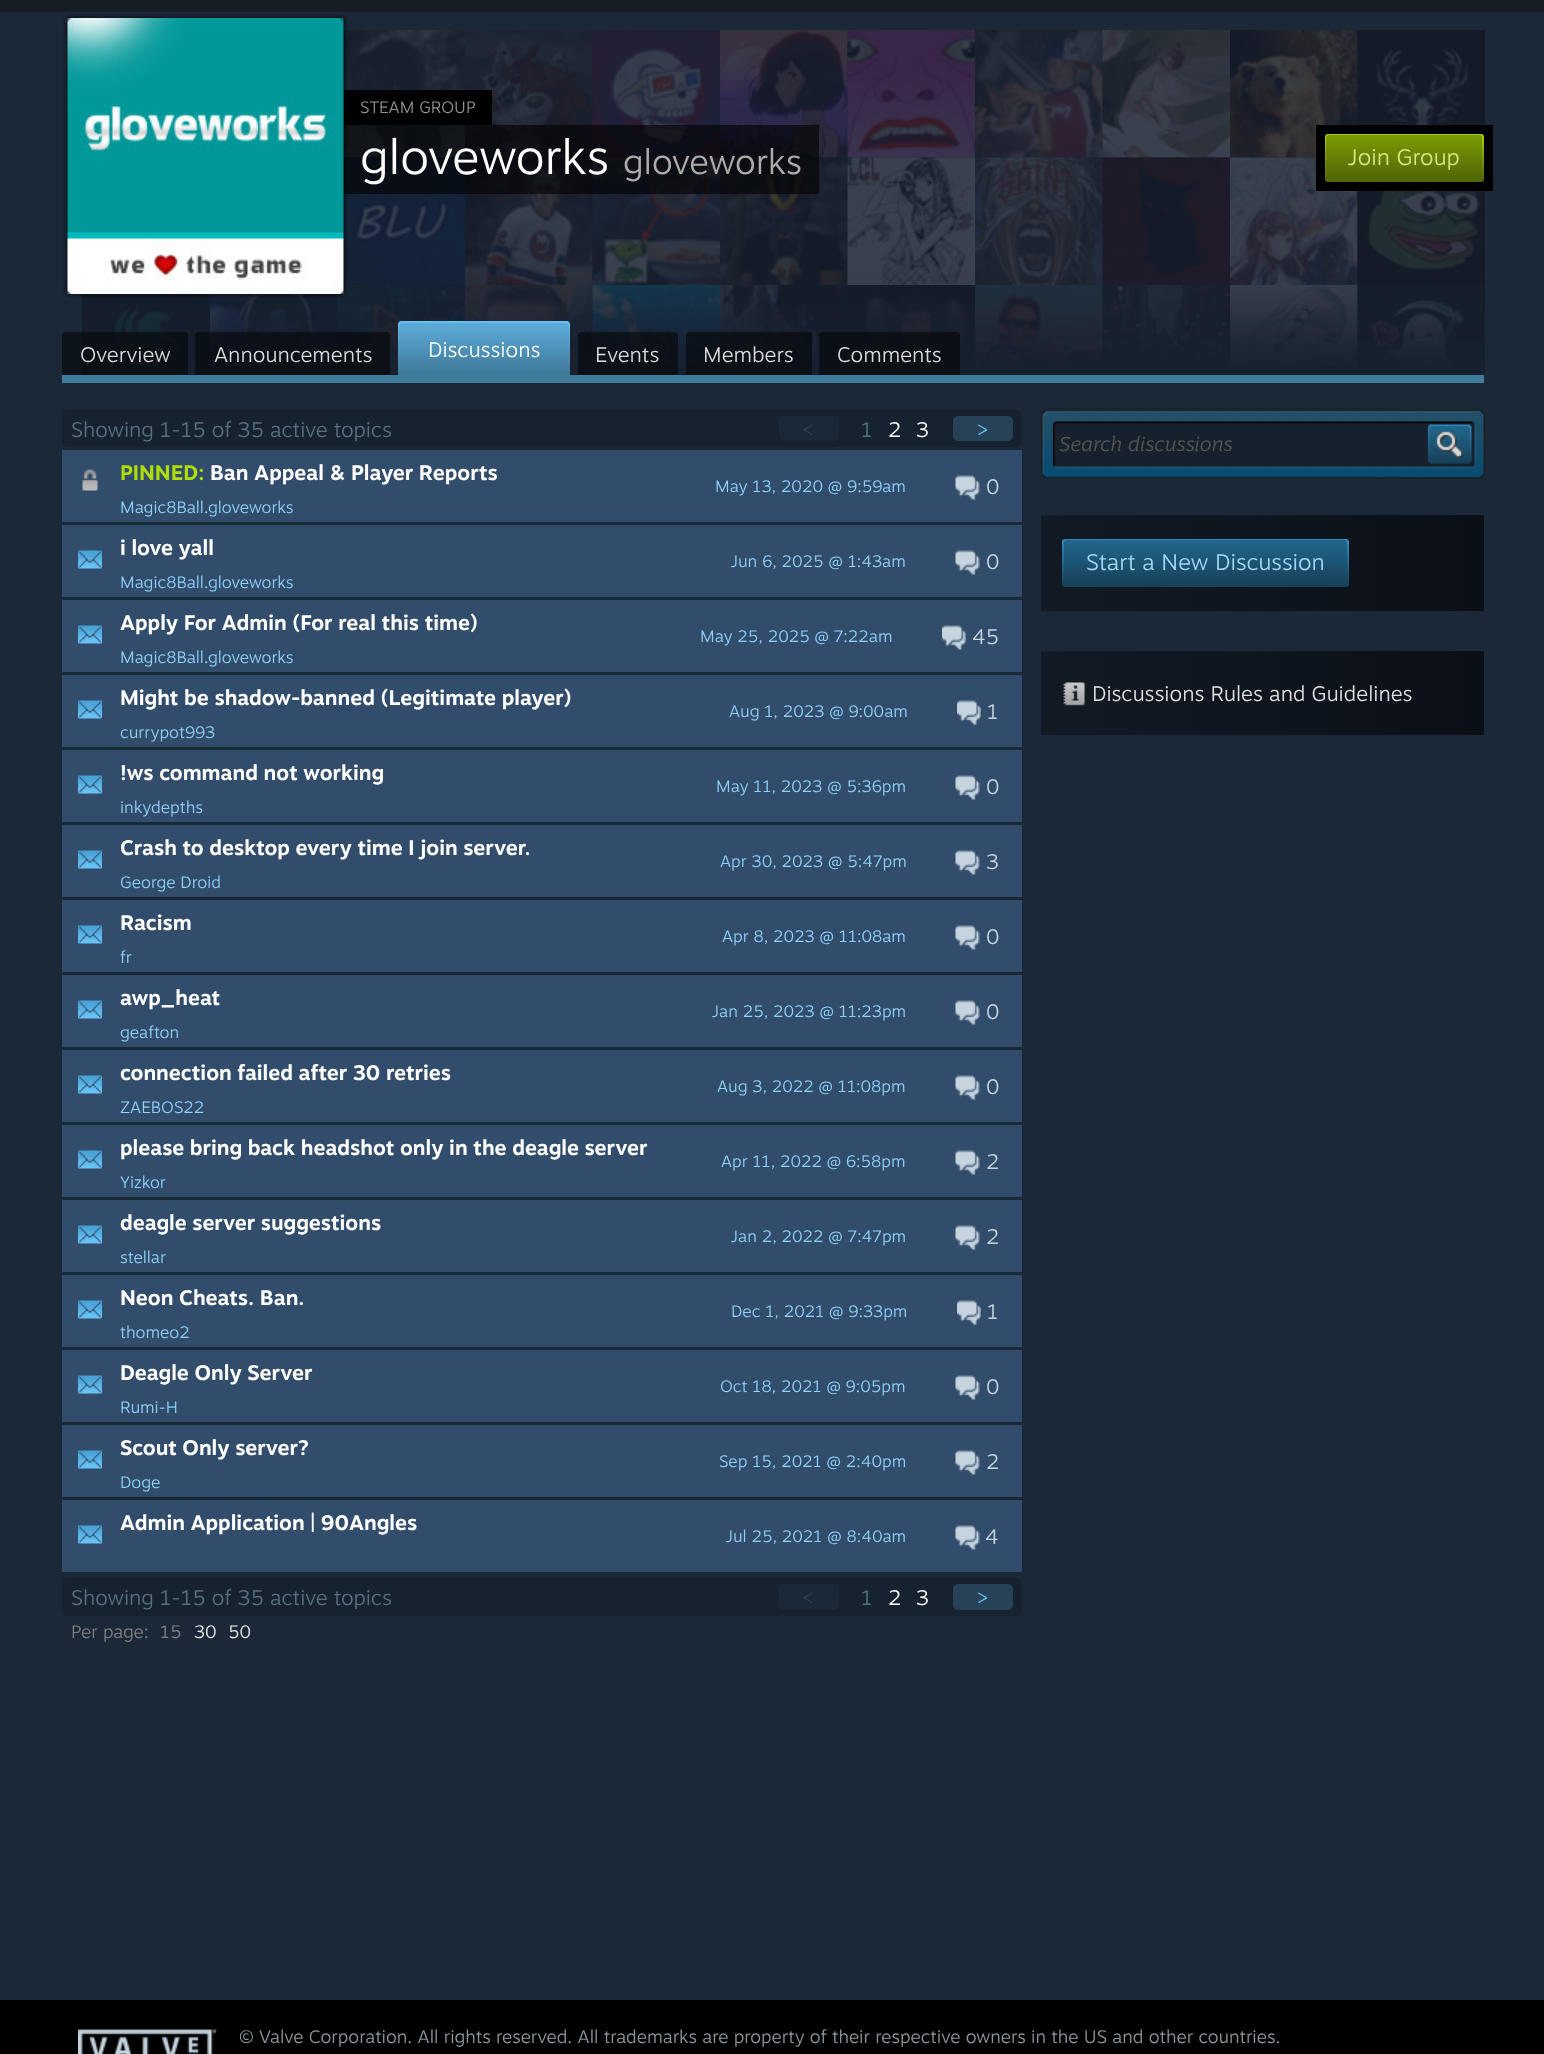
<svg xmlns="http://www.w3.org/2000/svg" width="1544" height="2054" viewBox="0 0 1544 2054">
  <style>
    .t1 { font: 300 16.5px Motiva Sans; fill: #949491; }
    .t2 { font: 300 48px Motiva Sans; fill: #fff; }
    .t3 { font: 300 34.5px Motiva Sans; fill: #acacac; }
    .t4 { font: 300 22.5px Motiva Sans; fill: #d2e885; }
    .t5 { font: 300 21px Motiva Sans; fill: #dadada; }
    .t6 { font: 300 21px Motiva Sans; fill: #fff; }
    .t7 { font: 300 21px Motiva Sans; fill: #56707f; }
    .t8 { font: 300 21px Motiva Sans; fill: #274257; }
    .t9 { font: 300 21px Motiva Sans; fill: #66c0f4; }
    .t10 { font: bold 21px Motiva Sans; fill: #aedd08; }
    .t11 { font: bold 21px Motiva Sans; fill: #fff; }
    .t12 { font: 300 16.5px Motiva Sans; fill: #8ed1f9; }
    .t13 { font: 300 21px Motiva Sans; fill: #c6d4df; }
    .t14 { font: 300 18px Motiva Sans; fill: #828282; }
    .t15 { font: 300 18px Motiva Sans; fill: #ebebeb; }
    .t16 { font: italic 300 20px Motiva Sans; fill: #555; }
    .t17 { font: 300 22.5px Motiva Sans; fill: #a4d7f5; }
    .t18 { font: 300 21px Motiva Sans; fill: #e1e1e1; }
    .t19 { font: 300 18px Motiva Sans; fill: #8f98a0; }
  </style>
  <defs>
    <linearGradient id="g1" gradientUnits="userSpaceOnUse" x1="1404" y1="134" x2="1404" y2="182"><stop offset="0.05" stop-color="#a4d007"/><stop offset="0.95" stop-color="#536904"/></linearGradient>
    <linearGradient id="g2" gradientUnits="userSpaceOnUse" x1="1404" y1="135" x2="1404" y2="180"><stop offset="0.05" stop-color="#799905"/><stop offset="0.95" stop-color="#536904"/></linearGradient>
    <linearGradient id="g3" gradientUnits="userSpaceOnUse" x1="484" y1="321" x2="484" y2="375"><stop offset="0.05" stop-color="#66c0f4"/><stop offset="0.95" stop-color="#417b9c"/></linearGradient>
    <linearGradient id="g4" gradientUnits="userSpaceOnUse" x1="484" y1="323" x2="484" y2="375"><stop offset="0.05" stop-color="#5aa9d6"/><stop offset="0.95" stop-color="#417b9c"/></linearGradient>
    <linearGradient id="g5" gradientUnits="userSpaceOnUse" x1="1041" y1="563" x2="1484" y2="563"><stop offset="0" stop-color="#121a24"/><stop offset="1" stop-color="#0b1017"/></linearGradient>
    <linearGradient id="g6" gradientUnits="userSpaceOnUse" x1="1205" y1="539" x2="1205" y2="587"><stop offset="0.05" stop-color="#2f89bc"/><stop offset="0.95" stop-color="#17435c"/></linearGradient>
    <linearGradient id="g7" gradientUnits="userSpaceOnUse" x1="1205" y1="540" x2="1205" y2="585"><stop offset="0.05" stop-color="#21658a"/><stop offset="0.95" stop-color="#17435c"/></linearGradient>
    <linearGradient id="g8" gradientUnits="userSpaceOnUse" x1="1041" y1="693" x2="1484" y2="693"><stop offset="0" stop-color="#121a24"/><stop offset="1" stop-color="#0b1017"/></linearGradient>
  </defs>
  <rect width="100%" height="100%" fill="#1b2838"/>
  <rect x="0" y="0" width="1544" height="12" fill="#171d25"/>
  <rect x="62" y="375" width="1422" height="8" fill="#417b9c"/>
  <image x="343" y="30" width="122" height="128" href="images/2.png"/>
  <image x="465" y="30" width="128" height="128" href="images/3.png"/>
  <image x="592" y="30" width="128" height="128" href="images/4.png"/>
  <image x="720" y="30" width="128" height="128" href="images/5.png"/>
  <image x="847" y="30" width="128" height="128" href="images/6.png"/>
  <image x="975" y="30" width="128" height="128" href="images/7.png"/>
  <image x="1102" y="30" width="128" height="128" href="images/8.png"/>
  <image x="1230" y="30" width="128" height="128" href="images/9.png"/>
  <image x="1357" y="30" width="128" height="95" href="images/10.png"/>
  <image x="343" y="157" width="122" height="128" href="images/11.png"/>
  <image x="465" y="157" width="128" height="128" href="images/12.png"/>
  <image x="592" y="157" width="128" height="128" href="images/13.png"/>
  <image x="720" y="157" width="128" height="128" href="images/14.png"/>
  <image x="847" y="157" width="128" height="128" href="images/15.png"/>
  <image x="975" y="157" width="128" height="128" href="images/16.png"/>
  <image x="1102" y="157" width="128" height="128" href="images/17.png"/>
  <image x="1230" y="157" width="128" height="128" href="images/18.png"/>
  <image x="1357" y="191" width="128" height="94" href="images/19.png"/>
  <image x="82" y="294" width="128" height="81" href="images/20.png"/>
  <image x="210" y="294" width="128" height="74" href="images/21.png"/>
  <image x="337" y="285" width="128" height="83" href="images/22.png"/>
  <image x="465" y="285" width="128" height="83" href="images/23.png"/>
  <image x="592" y="285" width="128" height="83" href="images/24.png"/>
  <image x="720" y="285" width="128" height="83" href="images/25.png"/>
  <image x="847" y="285" width="128" height="83" href="images/26.png"/>
  <image x="975" y="285" width="128" height="83" href="images/27.png"/>
  <image x="1102" y="285" width="128" height="83" href="images/28.png"/>
  <image x="1230" y="285" width="128" height="83" href="images/29.png"/>
  <image x="1357" y="285" width="128" height="83" href="images/30.png"/>
  <image x="82" y="30" width="1403" height="345" href="images/1.png"/>
  <image x="63" y="14" width="285" height="284" href="images/31.png"/>
  <image x="67" y="18" width="277" height="276" href="images/32.png"/>
  <rect x="344" y="90" width="148" height="35" fill="#000"/>
  <text x="360" y="113" class="t1">STEAM GROUP</text>
  <rect x="344" y="125" width="475" height="69" fill="#00000099"/>
  <text x="360" y="174" class="t2">gloveworks</text>
  <text x="623" y="174" class="t3">gloveworks</text>
  <rect x="1316" y="125" width="177" height="66" fill="#000"/>
  <rect x="1325" y="134" width="159" height="48" rx="3" fill="url(#g1)"/>
  <rect x="1326" y="135" width="156" height="45" rx="3" fill="url(#g2)"/>
  <text x="1348" y="165" class="t4">Join Group</text>
  <path d="M65 332H185C186.5 332 188 333.5 188 335V375H62V335C62 333.5 63.5 332 65 332Z" fill="#00000080"/>
  <text x="80" y="362" class="t5">Overview</text>
  <path d="M198 332H387C388.5 332 390 333.5 390 335V375H195V335C195 333.5 196.5 332 198 332Z" fill="#00000080"/>
  <text x="214" y="362" class="t5">Announcements</text>
  <path d="M401 321H567C568.5 321 570 322.5 570 324V375H398V324C398 322.5 399.5 321 401 321Z" fill="url(#g3)"/>
  <path d="M402 323H566C567.5 323 569 324.5 569 326V375H399V326C399 324.5 400.5 323 402 323Z" fill="url(#g4)"/>
  <text x="428" y="357" class="t6">Discussions</text>
  <path d="M581 332H675C676.5 332 678 333.5 678 335V375H578V335C578 333.5 579.5 332 581 332Z" fill="#00000080"/>
  <text x="595" y="362" class="t5">Events</text>
  <path d="M689 332H809C810.5 332 812 333.5 812 335V375H686V335C686 333.5 687.5 332 689 332Z" fill="#00000080"/>
  <text x="703" y="362" class="t5">Members</text>
  <path d="M822 332H957C958.5 332 960 333.5 960 335V375H819V335C819 333.5 820.5 332 822 332Z" fill="#00000080"/>
  <text x="837" y="362" class="t5">Comments</text>
  <rect x="62" y="410" width="960" height="37" rx="5" fill="#172230"/>
  <text x="71" y="437" class="t7">Showing 1-15 of 35 active topics</text>
  <rect x="779" y="416" width="60" height="25" rx="5" fill="#1a2838"/>
  <text x="802" y="437" class="t8">&lt;</text>
  <text x="861" y="437" class="t7">1</text>
  <text x="888" y="437" class="t6">2</text>
  <text x="916" y="437" class="t6">3</text>
  <rect x="953" y="416" width="60" height="25" rx="5" fill="#274257"/>
  <text x="976" y="437" class="t9">&gt;</text>
  <rect x="62" y="450" width="960" height="72" fill="#324d6b"/>
  <image x="82" y="469" width="16" height="22" href="images/33.png"/>
  <text x="120" y="480" class="t10">PINNED:</text>
  <text x="210" y="480" class="t11">Ban Appeal &amp; Player Reports</text>
  <text x="715" y="492" class="t12">May 13, 2020 @ 9:59am</text>
  <image x="955" y="475" width="25" height="25" href="images/34.png"/>
  <text x="986" y="494" class="t13">0</text>
  <text x="120" y="513" class="t12">Magic8Ball.gloveworks</text>
  <rect x="62" y="525" width="960" height="72" fill="#324d6b"/>
  <image x="78" y="550" width="24" height="19" href="images/35.png"/>
  <text x="120" y="555" class="t11">i love yall</text>
  <text x="731" y="567" class="t12">Jun 6, 2025 @ 1:43am</text>
  <image x="955" y="550" width="25" height="25" href="images/34.png"/>
  <text x="986" y="569" class="t13">0</text>
  <text x="120" y="588" class="t12">Magic8Ball.gloveworks</text>
  <rect x="62" y="600" width="960" height="72" fill="#324d6b"/>
  <image x="78" y="625" width="24" height="19" href="images/35.png"/>
  <text x="120" y="630" class="t11">Apply For Admin (For real this time)</text>
  <text x="700" y="642" class="t12">May 25, 2025 @ 7:22am</text>
  <image x="942" y="625" width="24" height="25" href="images/36.png"/>
  <text x="972" y="644" class="t13">45</text>
  <text x="120" y="663" class="t12">Magic8Ball.gloveworks</text>
  <rect x="62" y="675" width="960" height="72" fill="#324d6b"/>
  <image x="78" y="700" width="24" height="19" href="images/35.png"/>
  <text x="120" y="705" class="t11">Might be shadow-banned (Legitimate player)</text>
  <text x="729" y="717" class="t12">Aug 1, 2023 @ 9:00am</text>
  <image x="957" y="700" width="24" height="25" href="images/36.png"/>
  <text x="987" y="719" class="t13">1</text>
  <text x="120" y="738" class="t12">currypot993</text>
  <rect x="62" y="750" width="960" height="72" fill="#324d6b"/>
  <image x="78" y="775" width="24" height="19" href="images/35.png"/>
  <text x="120" y="780" class="t11">!ws command not working</text>
  <text x="716" y="792" class="t12">May 11, 2023 @ 5:36pm</text>
  <image x="955" y="775" width="25" height="25" href="images/34.png"/>
  <text x="986" y="794" class="t13">0</text>
  <text x="120" y="813" class="t12">inkydepths</text>
  <rect x="62" y="825" width="960" height="72" fill="#324d6b"/>
  <image x="78" y="850" width="24" height="19" href="images/35.png"/>
  <text x="120" y="855" class="t11">Crash to desktop every time I join server.</text>
  <text x="720" y="867" class="t12">Apr 30, 2023 @ 5:47pm</text>
  <image x="955" y="850" width="25" height="25" href="images/34.png"/>
  <text x="986" y="869" class="t13">3</text>
  <text x="120" y="888" class="t12">George Droid</text>
  <rect x="62" y="900" width="960" height="72" fill="#324d6b"/>
  <text x="120" y="930" class="t11">Racism</text>
  <image x="78" y="925" width="24" height="19" href="images/35.png"/>
  <text x="722" y="942" class="t12">Apr 8, 2023 @ 11:08am</text>
  <image x="955" y="925" width="25" height="25" href="images/34.png"/>
  <text x="986" y="944" class="t13">0</text>
  <text x="120" y="963" class="t12">fr</text>
  <rect x="62" y="975" width="960" height="72" fill="#324d6b"/>
  <image x="78" y="1000" width="24" height="19" href="images/35.png"/>
  <text x="120" y="1005" class="t11">awp_heat</text>
  <text x="712" y="1017" class="t12">Jan 25, 2023 @ 11:23pm</text>
  <image x="955" y="1000" width="25" height="25" href="images/34.png"/>
  <text x="986" y="1019" class="t13">0</text>
  <text x="120" y="1038" class="t12">geafton</text>
  <rect x="62" y="1050" width="960" height="72" fill="#324d6b"/>
  <text x="120" y="1080" class="t11">connection failed after 30 retries</text>
  <image x="78" y="1075" width="24" height="19" href="images/35.png"/>
  <text x="717" y="1092" class="t12">Aug 3, 2022 @ 11:08pm</text>
  <image x="955" y="1075" width="25" height="25" href="images/34.png"/>
  <text x="986" y="1094" class="t13">0</text>
  <text x="120" y="1113" class="t12">ZAEBOS22</text>
  <rect x="62" y="1125" width="960" height="72" fill="#324d6b"/>
  <image x="78" y="1150" width="24" height="19" href="images/35.png"/>
  <text x="120" y="1155" class="t11">please bring back headshot only in the deagle server</text>
  <text x="721" y="1167" class="t12">Apr 11, 2022 @ 6:58pm</text>
  <image x="955" y="1150" width="25" height="25" href="images/34.png"/>
  <text x="986" y="1169" class="t13">2</text>
  <text x="120" y="1188" class="t12">Yizkor</text>
  <rect x="62" y="1200" width="960" height="72" fill="#324d6b"/>
  <image x="78" y="1225" width="24" height="19" href="images/35.png"/>
  <text x="120" y="1230" class="t11">deagle server suggestions</text>
  <text x="731" y="1242" class="t12">Jan 2, 2022 @ 7:47pm</text>
  <image x="955" y="1225" width="25" height="25" href="images/34.png"/>
  <text x="986" y="1244" class="t13">2</text>
  <text x="120" y="1263" class="t12">stellar</text>
  <rect x="62" y="1275" width="960" height="72" fill="#324d6b"/>
  <text x="120" y="1305" class="t11">Neon Cheats. Ban.</text>
  <image x="78" y="1300" width="24" height="19" href="images/35.png"/>
  <text x="731" y="1317" class="t12">Dec 1, 2021 @ 9:33pm</text>
  <image x="957" y="1300" width="24" height="25" href="images/36.png"/>
  <text x="987" y="1319" class="t13">1</text>
  <text x="120" y="1338" class="t12">thomeo2</text>
  <rect x="62" y="1350" width="960" height="72" fill="#324d6b"/>
  <image x="78" y="1375" width="24" height="19" href="images/35.png"/>
  <text x="120" y="1380" class="t11">Deagle Only Server</text>
  <text x="720" y="1392" class="t12">Oct 18, 2021 @ 9:05pm</text>
  <image x="955" y="1375" width="25" height="25" href="images/34.png"/>
  <text x="986" y="1394" class="t13">0</text>
  <text x="120" y="1413" class="t12">Rumi-H</text>
  <rect x="62" y="1425" width="960" height="72" fill="#324d6b"/>
  <image x="78" y="1450" width="24" height="19" href="images/35.png"/>
  <text x="120" y="1455" class="t11">Scout Only server?</text>
  <text x="719" y="1467" class="t12">Sep 15, 2021 @ 2:40pm</text>
  <image x="955" y="1450" width="25" height="25" href="images/34.png"/>
  <text x="986" y="1469" class="t13">2</text>
  <text x="120" y="1488" class="t12">Doge</text>
  <rect x="62" y="1500" width="960" height="72" fill="#324d6b"/>
  <image x="78" y="1525" width="24" height="19" href="images/35.png"/>
  <text x="120" y="1530" class="t11">Admin Application | 90Angles</text>
  <text x="726" y="1542" class="t12">Jul 25, 2021 @ 8:40am</text>
  <image x="955" y="1525" width="25" height="25" href="images/34.png"/>
  <text x="985" y="1544" class="t13">4</text>
  <rect x="62" y="1578" width="960" height="38" rx="5" fill="#172230"/>
  <text x="71" y="1605" class="t7">Showing 1-15 of 35 active topics</text>
  <rect x="779" y="1584" width="60" height="26" rx="5" fill="#1a2838"/>
  <text x="802" y="1605" class="t8">&lt;</text>
  <text x="861" y="1605" class="t7">1</text>
  <text x="888" y="1605" class="t6">2</text>
  <text x="916" y="1605" class="t6">3</text>
  <rect x="953" y="1584" width="60" height="26" rx="5" fill="#274257"/>
  <text x="976" y="1605" class="t9">&gt;</text>
  <text x="71" y="1638" class="t14">Per page:</text>
  <text x="160" y="1638" class="t14">15</text>
  <text x="194" y="1638" class="t15">30</text>
  <text x="228" y="1638" class="t15">50</text>
  <image x="1041" y="409" width="444" height="70" href="images/37.png"/>
  <text x="1059" y="451" class="t16">Search discussions</text>
  <image x="1436" y="431" width="27" height="27" href="images/38.png"/>
  <rect x="1041" y="515" width="443" height="96" fill="url(#g5)"/>
  <rect x="1062" y="539" width="287" height="48" rx="3" fill="url(#g6)"/>
  <rect x="1064" y="540" width="283" height="45" rx="3" fill="url(#g7)"/>
  <text x="1086" y="570" class="t17">Start a New Discussion</text>
  <rect x="1041" y="651" width="443" height="84" fill="url(#g8)"/>
  <image x="1063" y="682" width="22" height="24" href="images/39.png"/>
  <text x="1092" y="701" class="t18">Discussions Rules and Guidelines</text>
  <rect x="0" y="2000" width="1544" height="54" fill="#000"/>
  <image x="78" y="2029" width="139" height="25" href="images/40.png"/>
  <text x="239" y="2043" class="t19">© Valve Corporation. All rights reserved. All trademarks are property of their respective owners in the US and other countries.</text>
</svg>
